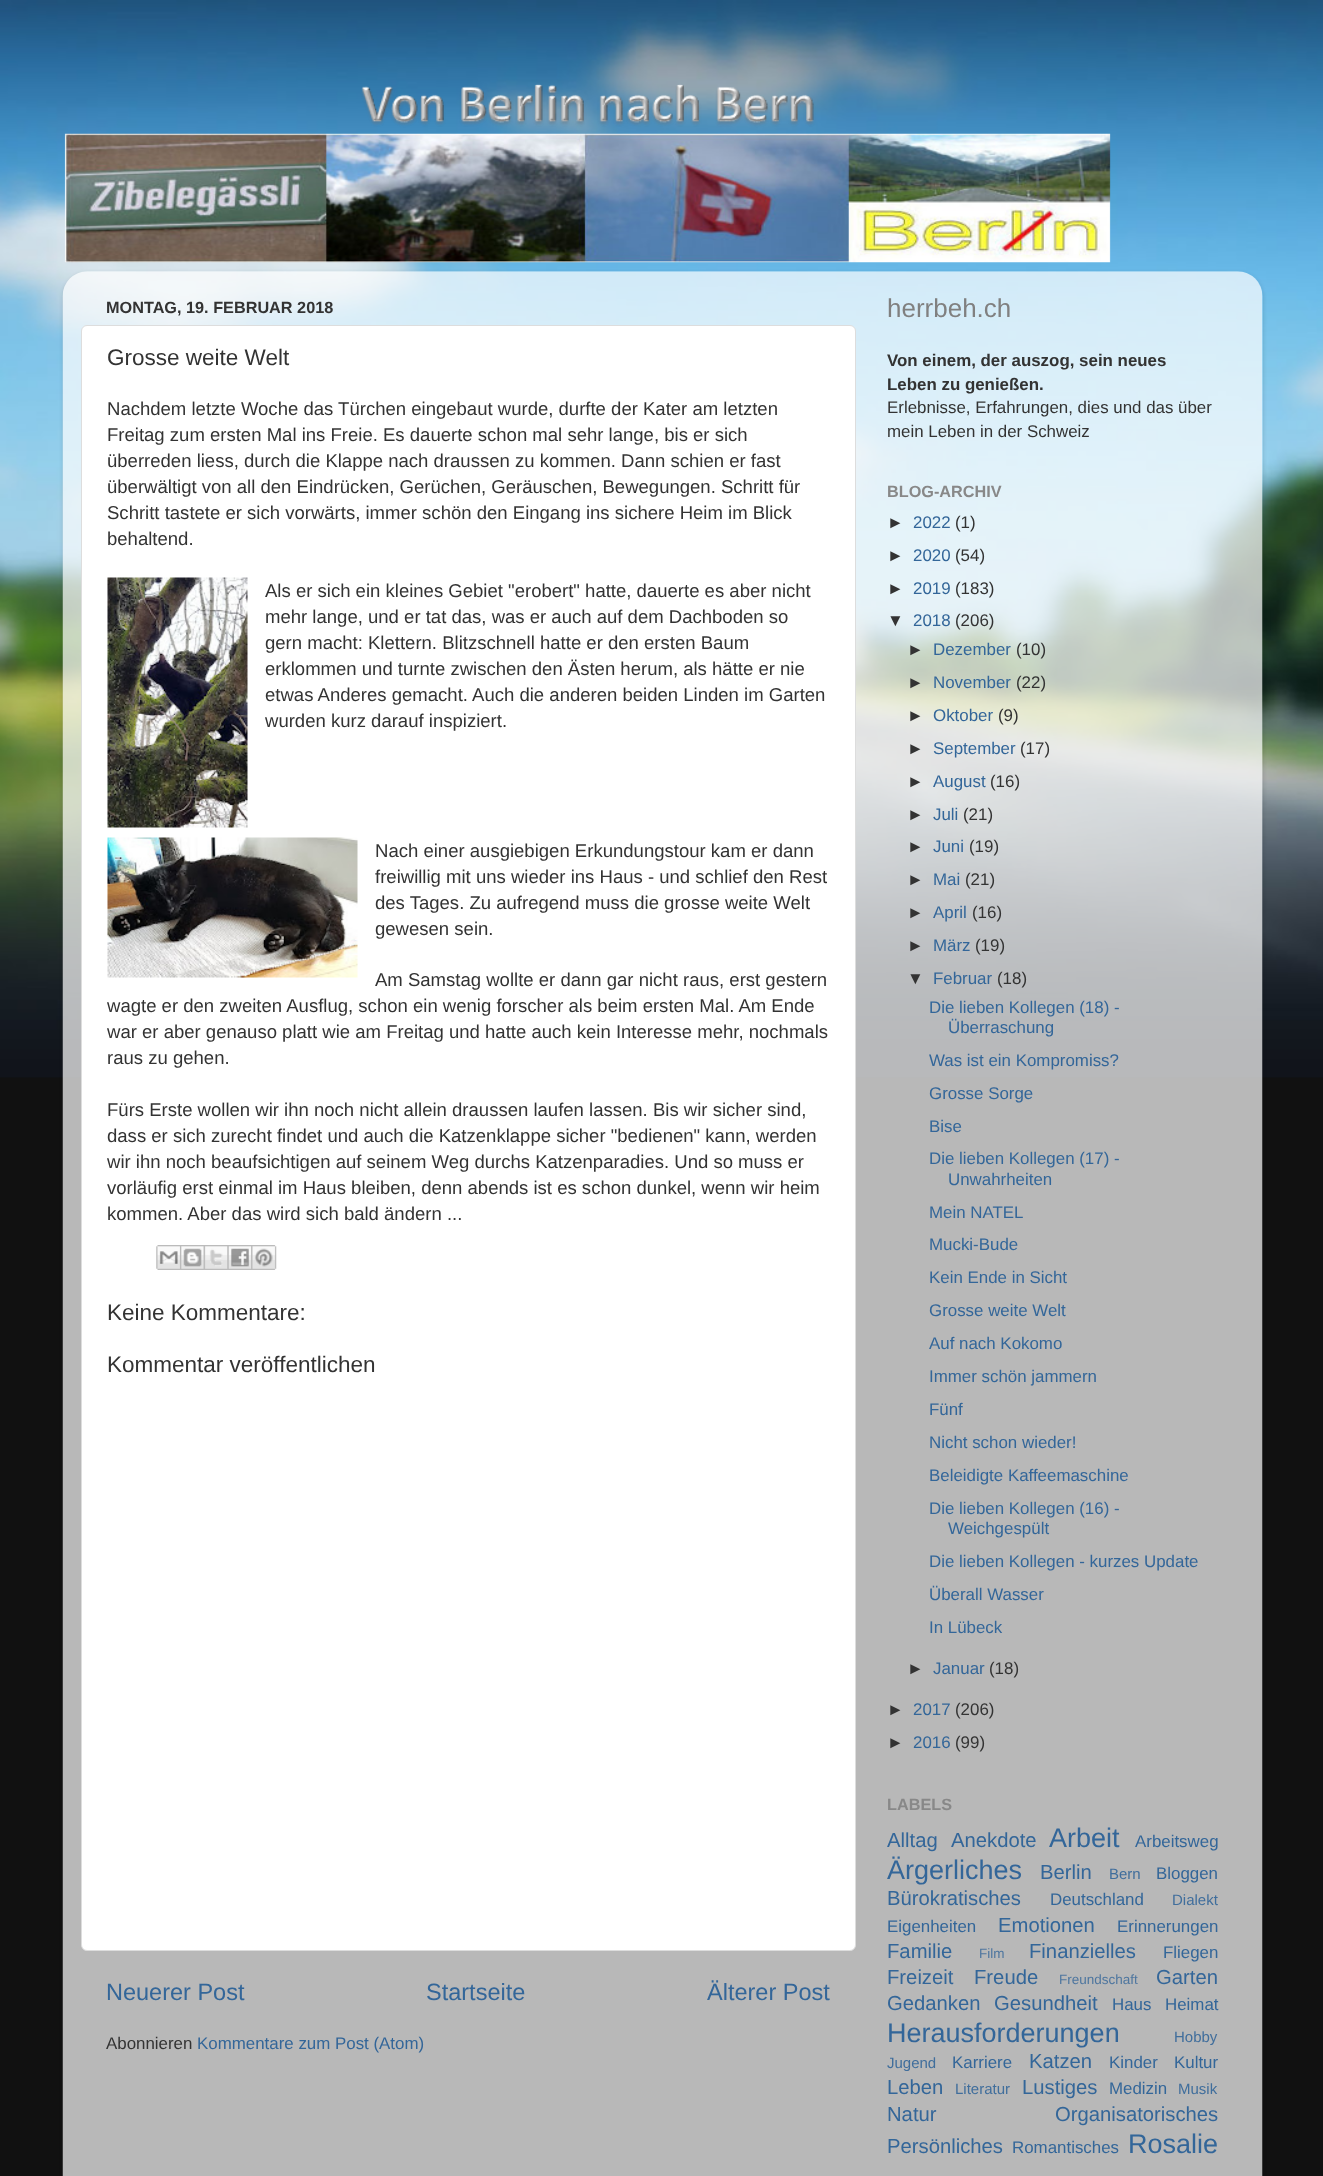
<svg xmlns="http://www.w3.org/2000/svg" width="1323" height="2176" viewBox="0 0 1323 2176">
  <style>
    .t1 { font: bold 16.25px Liberation Sans; fill: #333; }
    .t2 { font: 22.5px Liberation Sans; fill: #333; }
    .t3 { font: 18.55px Liberation Sans; fill: #333; }
    .t4 { font: 23.5px Liberation Sans; fill: #369; }
    .t5 { font: 16.9px Liberation Sans; fill: #333; }
    .t6 { font: 16.9px Liberation Sans; fill: #369; }
    .t7 { font: 26px Liberation Sans; fill: #808080; }
    .t8 { font: bold 16.9px Liberation Sans; fill: #333; }
    .t9 { font: bold 16.25px Liberation Sans; fill: #888; }
    .t10 { font: 20.25px Liberation Sans; fill: #369; }
    .t11 { font: 27px Liberation Sans; fill: #369; }
    .t12 { font: 15px Liberation Sans; fill: #406e9c; }
    .t13 { font: 13.5px Liberation Sans; fill: #4e769f; }
  </style>
  <defs>
    <clipPath id="clip1"><path d="M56 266H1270V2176H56ZM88 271H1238C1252 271 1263 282 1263 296V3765H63V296C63 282 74 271 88 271Z" clip-rule="evenodd"/></clipPath>
  </defs>
  <rect width="100%" height="100%" fill="#111"/>
  <image x="0" y="0" width="1323" height="1078" href="images/1.png"/>
  <image x="64" y="83" width="1047" height="180" href="images/2.png"/>
  <g clip-path="url(#clip1)">
    <rect x="63" y="273" width="1200" height="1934" rx="25" fill="#00000026" filter="blur(2px)"/>
  </g>
  <image x="62" y="271" width="1201" height="1905" href="images/3.png"/>
  <text x="106" y="313" class="t1">MONTAG, 19. FEBRUAR 2018</text>
  <rect x="81.5" y="325.5" width="774" height="1625" rx="5.5" fill="#fff" stroke="#ddd"/>
  <text x="107" y="365" class="t2">Grosse weite Welt</text>
  <text x="107" y="415" class="t3">Nachdem letzte Woche das Türchen eingebaut wurde, durfte der Kater am letzten</text>
  <text x="107" y="441" class="t3">Freitag zum ersten Mal ins Freie. Es dauerte schon mal sehr lange, bis er sich</text>
  <text x="107" y="467" class="t3">überreden liess, durch die Klappe nach draussen zu kommen. Dann schien er fast</text>
  <text x="107" y="493" class="t3">überwältigt von all den Eindrücken, Gerüchen, Geräuschen, Bewegungen. Schritt für</text>
  <text x="107" y="519" class="t3">Schritt tastete er sich vorwärts, immer schön den Eingang ins sichere Heim im Blick</text>
  <text x="107" y="545" class="t3">behaltend.</text>
  <image x="107" y="577" width="141" height="251" href="images/4.png"/>
  <text x="265" y="597" class="t3">Als er sich ein kleines Gebiet "erobert" hatte, dauerte es aber nicht</text>
  <text x="265" y="623" class="t3">mehr lange, und er tat das, was er auch auf dem Dachboden so</text>
  <text x="265" y="649" class="t3">gern macht: Klettern. Blitzschnell hatte er den ersten Baum</text>
  <text x="265" y="675" class="t3">erklommen und turnte zwischen den Ästen herum, als hätte er nie</text>
  <text x="265" y="701" class="t3">etwas Anderes gemacht. Auch die anderen beiden Linden im Garten</text>
  <text x="265" y="727" class="t3">wurden kurz darauf inspiziert.</text>
  <image x="107" y="837" width="251" height="141" href="images/5.png"/>
  <text x="375" y="857" class="t3">Nach einer ausgiebigen Erkundungstour kam er dann</text>
  <text x="375" y="883" class="t3">freiwillig mit uns wieder ins Haus - und schlief den Rest</text>
  <text x="375" y="909" class="t3">des Tages. Zu aufregend muss die grosse weite Welt</text>
  <text x="375" y="935" class="t3">gewesen sein.</text>
  <text x="375" y="986" class="t3">Am Samstag wollte er dann gar nicht raus, erst gestern</text>
  <text x="107" y="1012" class="t3">wagte er den zweiten Ausflug, schon ein wenig forscher als beim ersten Mal. Am Ende</text>
  <text x="107" y="1038" class="t3">war er aber genauso platt wie am Freitag und hatte auch kein Interesse mehr, nochmals</text>
  <text x="107" y="1064" class="t3">raus zu gehen.</text>
  <text x="107" y="1116" class="t3">Fürs Erste wollen wir ihn noch nicht allein draussen laufen lassen. Bis wir sicher sind,</text>
  <text x="107" y="1142" class="t3">dass er sich zurecht findet und auch die Katzenklappe sicher "bedienen" kann, werden</text>
  <text x="107" y="1168" class="t3">wir ihn noch beaufsichtigen auf seinem Weg durchs Katzenparadies. Und so muss er</text>
  <text x="107" y="1194" class="t3">vorläufig erst einmal im Haus bleiben, denn abends ist es schon dunkel, wenn wir heim</text>
  <text x="107" y="1220" class="t3">kommen. Aber das wird sich bald ändern ...</text>
  <image x="156" y="1245" width="24" height="25" href="images/6.png"/>
  <image x="180" y="1245" width="24" height="25" href="images/7.png"/>
  <image x="203" y="1245" width="25" height="25" href="images/8.png"/>
  <image x="227" y="1245" width="25" height="25" href="images/9.png"/>
  <image x="251" y="1245" width="26" height="25" href="images/10.png"/>
  <text x="107" y="1320" class="t2">Keine Kommentare:</text>
  <text x="107" y="1372" class="t2">Kommentar veröffentlichen</text>
  <text x="106" y="2000" class="t4">Neuerer Post</text>
  <text x="426" y="2000" class="t4">Startseite</text>
  <text x="707" y="2000" class="t4">Älterer Post</text>
  <text x="106" y="2049" class="t5">Abonnieren</text>
  <text x="197" y="2049" class="t6">Kommentare zum Post (Atom)</text>
  <text x="887" y="317" class="t7">herrbeh.ch</text>
  <text x="887" y="366" class="t8">Von einem, der auszog, sein neues</text>
  <text x="887" y="390" class="t8">Leben zu genießen.</text>
  <text x="887" y="413" class="t5">Erlebnisse, Erfahrungen, dies und das über</text>
  <text x="887" y="437" class="t5">mein Leben in der Schweiz</text>
  <text x="887" y="497" class="t9">BLOG-ARCHIV</text>
  <text x="887" y="528" class="t5">►</text>
  <text x="913" y="528" class="t6">2022</text>
  <text x="955" y="528" class="t5">(1)</text>
  <text x="887" y="561" class="t5">►</text>
  <text x="913" y="561" class="t6">2020</text>
  <text x="955" y="561" class="t5">(54)</text>
  <text x="887" y="594" class="t5">►</text>
  <text x="913" y="594" class="t6">2019</text>
  <text x="955" y="594" class="t5">(183)</text>
  <text x="887" y="626" class="t5">▼</text>
  <text x="913" y="626" class="t6">2018</text>
  <text x="955" y="626" class="t5">(206)</text>
  <text x="907" y="655" class="t5">►</text>
  <text x="933" y="655" class="t6">Dezember</text>
  <text x="1016" y="655" class="t5">(10)</text>
  <text x="907" y="688" class="t5">►</text>
  <text x="933" y="688" class="t6">November</text>
  <text x="1016" y="688" class="t5">(22)</text>
  <text x="907" y="721" class="t5">►</text>
  <text x="933" y="721" class="t6">Oktober</text>
  <text x="998" y="721" class="t5">(9)</text>
  <text x="907" y="754" class="t5">►</text>
  <text x="933" y="754" class="t6">September</text>
  <text x="1020" y="754" class="t5">(17)</text>
  <text x="907" y="787" class="t5">►</text>
  <text x="933" y="787" class="t6">August</text>
  <text x="990" y="787" class="t5">(16)</text>
  <text x="907" y="820" class="t5">►</text>
  <text x="933" y="820" class="t6">Juli</text>
  <text x="963" y="820" class="t5">(21)</text>
  <text x="907" y="852" class="t5">►</text>
  <text x="933" y="852" class="t6">Juni</text>
  <text x="969" y="852" class="t5">(19)</text>
  <text x="907" y="885" class="t5">►</text>
  <text x="933" y="885" class="t6">Mai</text>
  <text x="965" y="885" class="t5">(21)</text>
  <text x="907" y="918" class="t5">►</text>
  <text x="933" y="918" class="t6">April</text>
  <text x="972" y="918" class="t5">(16)</text>
  <text x="907" y="951" class="t5">►</text>
  <text x="933" y="951" class="t6">März</text>
  <text x="975" y="951" class="t5">(19)</text>
  <text x="907" y="984" class="t5">▼</text>
  <text x="933" y="984" class="t6">Februar</text>
  <text x="997" y="984" class="t5">(18)</text>
  <text x="929" y="1013" class="t6">Die lieben Kollegen (18) -</text>
  <text x="948" y="1033" class="t6">Überraschung</text>
  <text x="929" y="1066" class="t6">Was ist ein Kompromiss?</text>
  <text x="929" y="1099" class="t6">Grosse Sorge</text>
  <text x="929" y="1132" class="t6">Bise</text>
  <text x="929" y="1164" class="t6">Die lieben Kollegen (17) -</text>
  <text x="948" y="1185" class="t6">Unwahrheiten</text>
  <text x="929" y="1218" class="t6">Mein NATEL</text>
  <text x="929" y="1250" class="t6">Mucki-Bude</text>
  <text x="929" y="1283" class="t6">Kein Ende in Sicht</text>
  <text x="929" y="1316" class="t6">Grosse weite Welt</text>
  <text x="929" y="1349" class="t6">Auf nach Kokomo</text>
  <text x="929" y="1382" class="t6">Immer schön jammern</text>
  <text x="929" y="1415" class="t6">Fünf</text>
  <text x="929" y="1448" class="t6">Nicht schon wieder!</text>
  <text x="929" y="1481" class="t6">Beleidigte Kaffeemaschine</text>
  <text x="929" y="1514" class="t6">Die lieben Kollegen (16) -</text>
  <text x="948" y="1534" class="t6">Weichgespült</text>
  <text x="929" y="1567" class="t6">Die lieben Kollegen - kurzes Update</text>
  <text x="929" y="1600" class="t6">Überall Wasser</text>
  <text x="929" y="1633" class="t6">In Lübeck</text>
  <text x="907" y="1674" class="t5">►</text>
  <text x="933" y="1674" class="t6">Januar</text>
  <text x="989" y="1674" class="t5">(18)</text>
  <text x="887" y="1715" class="t5">►</text>
  <text x="913" y="1715" class="t6">2017</text>
  <text x="955" y="1715" class="t5">(206)</text>
  <text x="887" y="1748" class="t5">►</text>
  <text x="913" y="1748" class="t6">2016</text>
  <text x="955" y="1748" class="t5">(99)</text>
  <text x="887" y="1810" class="t9">LABELS</text>
  <text x="887" y="1847" class="t10">Alltag</text>
  <text x="951" y="1847" class="t10">Anekdote</text>
  <text x="1049" y="1847" class="t11">Arbeit</text>
  <text x="1135" y="1847" class="t6">Arbeitsweg</text>
  <text x="887" y="1879" class="t11">Ärgerliches</text>
  <text x="1040" y="1879" class="t10">Berlin</text>
  <text x="1109" y="1879" class="t12">Bern</text>
  <text x="1156" y="1879" class="t6">Bloggen</text>
  <text x="887" y="1905" class="t10">Bürokratisches</text>
  <text x="1050" y="1905" class="t6">Deutschland</text>
  <text x="1172" y="1905" class="t12">Dialekt</text>
  <text x="887" y="1932" class="t6">Eigenheiten</text>
  <text x="998" y="1932" class="t10">Emotionen</text>
  <text x="1117" y="1932" class="t6">Erinnerungen</text>
  <text x="887" y="1958" class="t10">Familie</text>
  <text x="979" y="1958" class="t13">Film</text>
  <text x="1029" y="1958" class="t10">Finanzielles</text>
  <text x="1163" y="1958" class="t6">Fliegen</text>
  <text x="887" y="1984" class="t10">Freizeit</text>
  <text x="974" y="1984" class="t10">Freude</text>
  <text x="1059" y="1984" class="t13">Freundschaft</text>
  <text x="1156" y="1984" class="t10">Garten</text>
  <text x="887" y="2010" class="t10">Gedanken</text>
  <text x="994" y="2010" class="t10">Gesundheit</text>
  <text x="1112" y="2010" class="t6">Haus</text>
  <text x="1165" y="2010" class="t6">Heimat</text>
  <text x="887" y="2042" class="t11">Herausforderungen</text>
  <text x="1174" y="2042" class="t12">Hobby</text>
  <text x="887" y="2068" class="t12">Jugend</text>
  <text x="952" y="2068" class="t6">Karriere</text>
  <text x="1029" y="2068" class="t10">Katzen</text>
  <text x="1109" y="2068" class="t6">Kinder</text>
  <text x="1174" y="2068" class="t6">Kultur</text>
  <text x="887" y="2094" class="t10">Leben</text>
  <text x="955" y="2094" class="t12">Literatur</text>
  <text x="1022" y="2094" class="t10">Lustiges</text>
  <text x="1109" y="2094" class="t6">Medizin</text>
  <text x="1178" y="2094" class="t12">Musik</text>
  <text x="887" y="2121" class="t10">Natur</text>
  <text x="1055" y="2121" class="t10">Organisatorisches</text>
  <text x="887" y="2153" class="t10">Persönliches</text>
  <text x="1012" y="2153" class="t6">Romantisches</text>
  <text x="1128" y="2153" class="t11">Rosalie</text>
</svg>
